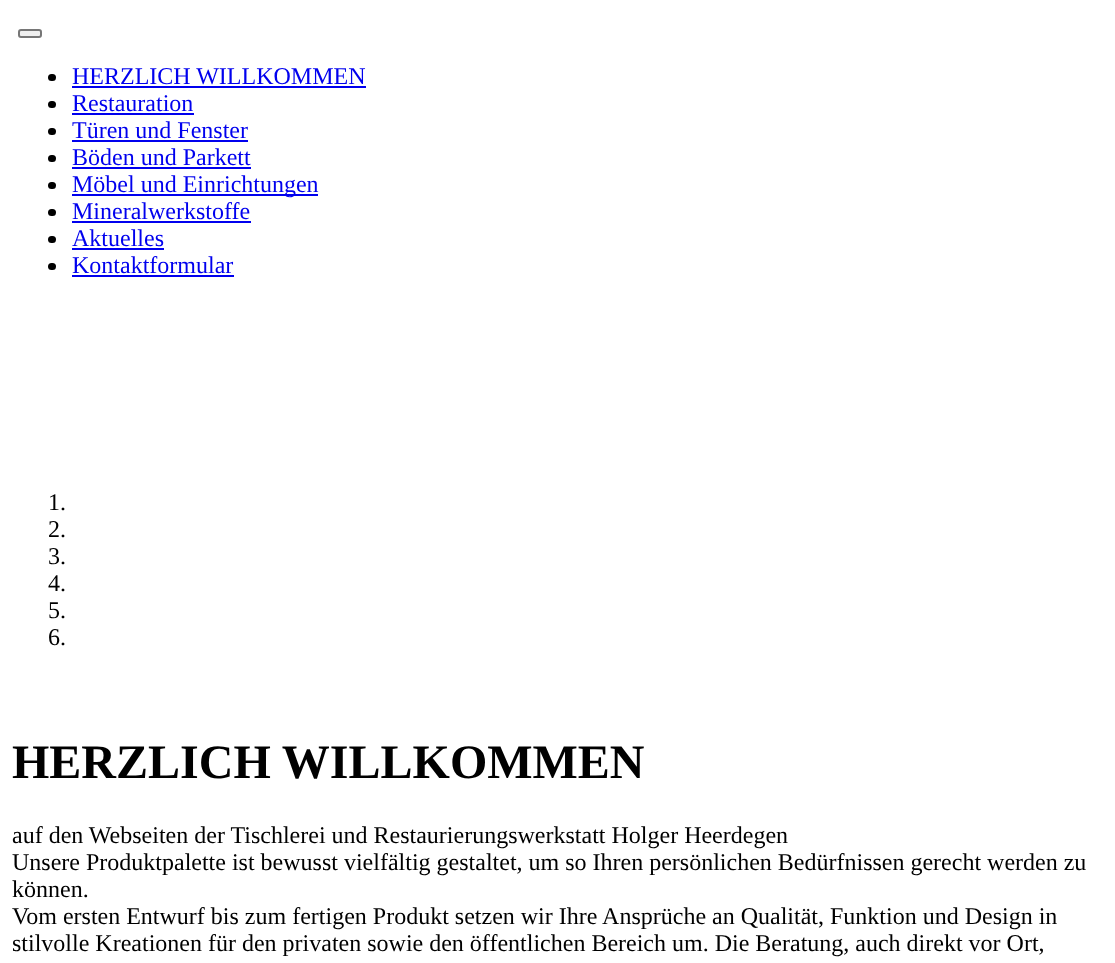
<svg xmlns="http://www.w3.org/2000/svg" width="1115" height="963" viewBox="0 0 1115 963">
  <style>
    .t1 { font: 24px Liberation Serif; fill: #00e; }
    .t2 { font: 24px Liberation Serif; fill: #000; }
    .t3 { font: bold 48px Liberation Serif; fill: #000; }
  </style>
  <rect width="100%" height="100%" fill="#fff"/>
  <rect x="19" y="30" width="22" height="7" rx="2" fill="#efefef" stroke="#767676" stroke-width="2"/>
  <rect x="48" y="74" width="8" height="7" rx="3.5" fill="#000"/>
  <text x="72" y="84" class="t1">HERZLICH WILLKOMMEN</text>
  <rect x="72" y="86" width="294" height="2" fill="#00e"/>
  <rect x="48" y="101" width="8" height="7" rx="3.5" fill="#000"/>
  <text x="72" y="111" class="t1">Restauration</text>
  <rect x="72" y="113" width="122" height="2" fill="#00e"/>
  <rect x="48" y="128" width="8" height="7" rx="3.5" fill="#000"/>
  <text x="72" y="138" class="t1">Türen und Fenster</text>
  <rect x="72" y="140" width="176" height="2" fill="#00e"/>
  <rect x="48" y="155" width="8" height="7" rx="3.5" fill="#000"/>
  <text x="72" y="165" class="t1">Böden und Parkett</text>
  <rect x="72" y="167" width="179" height="2" fill="#00e"/>
  <rect x="48" y="182" width="8" height="7" rx="3.5" fill="#000"/>
  <rect x="72" y="194" width="246" height="2" fill="#00e"/>
  <text x="72" y="192" class="t1">Möbel und Einrichtungen</text>
  <rect x="48" y="209" width="8" height="7" rx="3.5" fill="#000"/>
  <text x="72" y="219" class="t1">Mineralwerkstoffe</text>
  <rect x="72" y="221" width="179" height="2" fill="#00e"/>
  <rect x="48" y="236" width="8" height="7" rx="3.5" fill="#000"/>
  <text x="72" y="246" class="t1">Aktuelles</text>
  <rect x="72" y="248" width="92" height="2" fill="#00e"/>
  <rect x="48" y="263" width="8" height="7" rx="3.5" fill="#000"/>
  <text x="72" y="273" class="t1">Kontaktformular</text>
  <rect x="72" y="275" width="162" height="2" fill="#00e"/>
  <text x="48" y="510" class="t2">1.</text>
  <text x="48" y="537" class="t2">2.</text>
  <text x="48" y="564" class="t2">3.</text>
  <text x="48" y="591" class="t2">4.</text>
  <text x="48" y="618" class="t2">5.</text>
  <text x="48" y="645" class="t2">6.</text>
  <text x="12" y="778" class="t3">HERZLICH WILLKOMMEN</text>
  <text x="12" y="843" class="t2">auf den Webseiten der Tischlerei und Restaurierungswerkstatt Holger Heerdegen</text>
  <text x="12" y="870" class="t2">Unsere Produktpalette ist bewusst vielfältig gestaltet, um so Ihren persönlichen Bedürfnissen gerecht werden zu</text>
  <text x="12" y="897" class="t2">können.</text>
  <text x="12" y="924" class="t2">Vom ersten Entwurf bis zum fertigen Produkt setzen wir Ihre Ansprüche an Qualität, Funktion und Design in</text>
  <text x="12" y="951" class="t2">stilvolle Kreationen für den privaten sowie den öffentlichen Bereich um. Die Beratung, auch direkt vor Ort,</text>
</svg>
